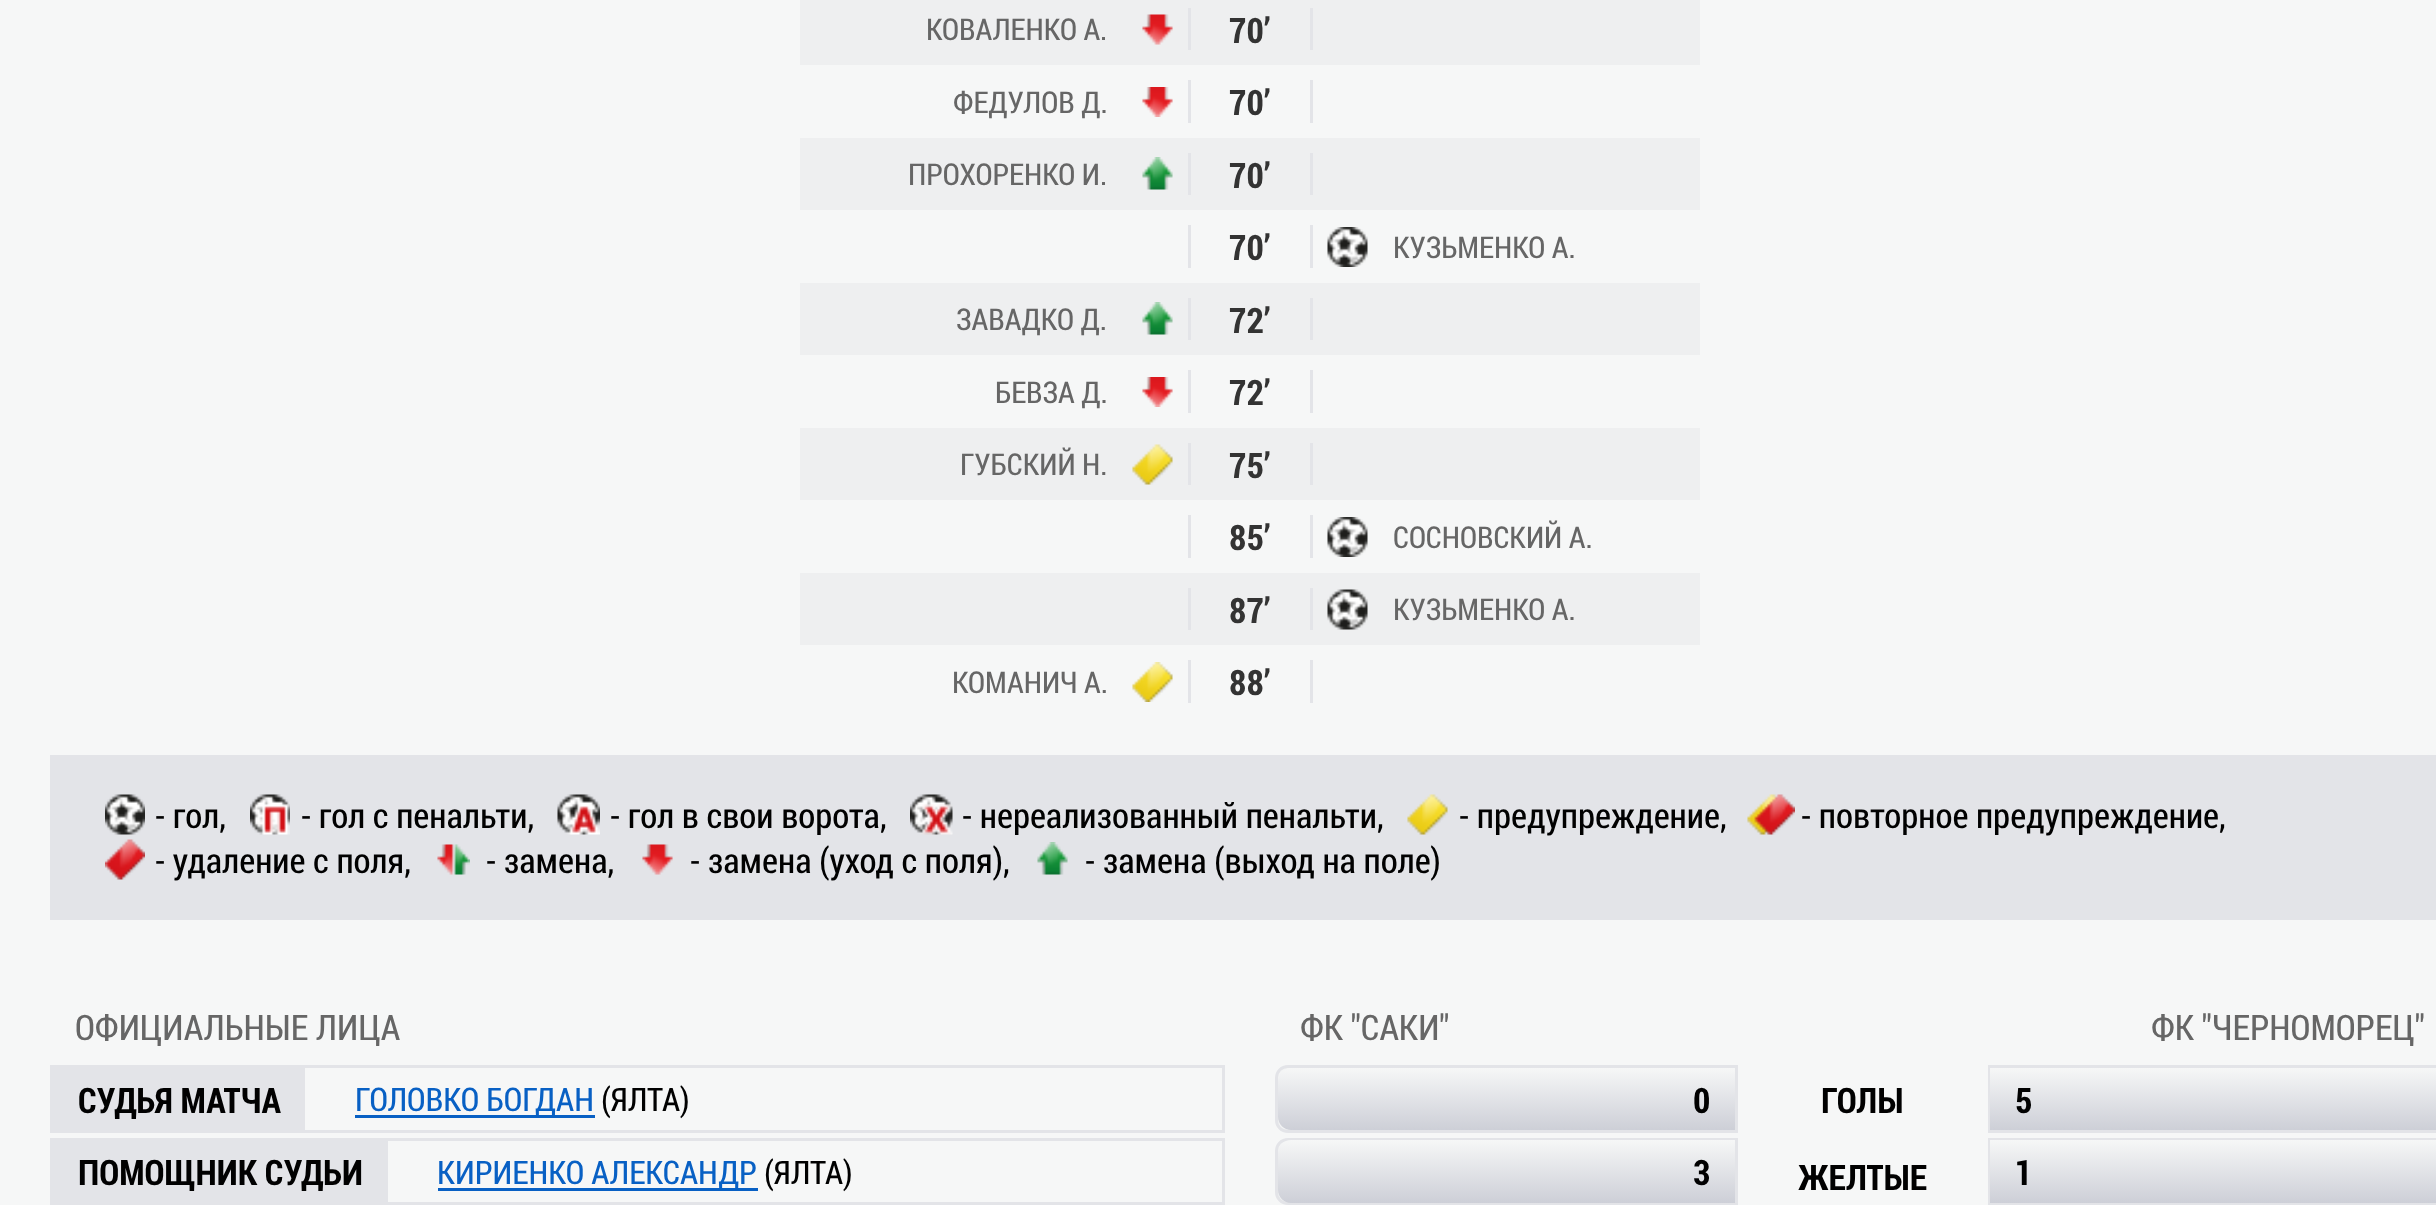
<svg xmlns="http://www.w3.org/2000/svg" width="2436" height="1205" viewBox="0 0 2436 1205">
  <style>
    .t1 { font: 30px Roboto Condensed; fill: #666; }
    .t2 { font: bold 35px Roboto Condensed; fill: #333; }
    .t3 { font: 35px Roboto Condensed; fill: #010101; }
    .t4 { font: 35px Roboto Condensed; fill: #666; }
    .t5 { font: bold 35px Roboto Condensed; fill: #010101; }
    .t6 { font: 32.5px Roboto Condensed; fill: #0860c4; }
    .t7 { font: 32.5px Roboto Condensed; fill: #010101; }
  </style>
  <defs>
    <linearGradient id="g1" gradientUnits="userSpaceOnUse" x1="1506" y1="1130" x2="1506" y2="1068"><stop offset="0" stop-color="#cdcfd7"/><stop offset="1" stop-color="#f6f7f7"/></linearGradient>
    <linearGradient id="g2" gradientUnits="userSpaceOnUse" x1="1506" y1="1203" x2="1506" y2="1140"><stop offset="0" stop-color="#cdcfd7"/><stop offset="1" stop-color="#f6f7f7"/></linearGradient>
    <linearGradient id="g3" gradientUnits="userSpaceOnUse" x1="2219" y1="1130" x2="2219" y2="1068"><stop offset="0" stop-color="#cdcfd7"/><stop offset="1" stop-color="#f6f7f7"/></linearGradient>
    <linearGradient id="g4" gradientUnits="userSpaceOnUse" x1="2219" y1="1203" x2="2219" y2="1140"><stop offset="0" stop-color="#cdcfd7"/><stop offset="1" stop-color="#f6f7f7"/></linearGradient>
  </defs>
  <rect width="100%" height="100%" fill="#f6f7f7"/>
  <rect x="800" y="0" width="900" height="65" fill="#eeeff0"/>
  <image x="1142" y="14" width="31" height="31" href="images/1.png"/>
  <text x="926" y="40" class="t1">КОВАЛЕНКО А.</text>
  <rect x="1310" y="8" width="3" height="42" fill="#e3e4e8"/>
  <rect x="1188" y="8" width="3" height="42" fill="#e3e4e8"/>
  <text x="1229" y="43" class="t2">70’</text>
  <image x="1142" y="87" width="31" height="30" href="images/2.png"/>
  <text x="953" y="113" class="t1">ФЕДУЛОВ Д.</text>
  <rect x="1310" y="80" width="3" height="43" fill="#e3e4e8"/>
  <rect x="1188" y="80" width="3" height="43" fill="#e3e4e8"/>
  <text x="1229" y="115" class="t2">70’</text>
  <rect x="800" y="138" width="900" height="72" fill="#eeeff0"/>
  <image x="1142" y="157" width="31" height="33" href="images/3.png"/>
  <text x="908" y="185" class="t1">ПРОХОРЕНКО И.</text>
  <rect x="1310" y="153" width="3" height="42" fill="#e3e4e8"/>
  <rect x="1188" y="153" width="3" height="42" fill="#e3e4e8"/>
  <text x="1229" y="188" class="t2">70’</text>
  <rect x="1310" y="225" width="3" height="43" fill="#e3e4e8"/>
  <rect x="1188" y="225" width="3" height="43" fill="#e3e4e8"/>
  <text x="1229" y="260" class="t2">70’</text>
  <image x="1327" y="227" width="41" height="40" href="images/4.png"/>
  <text x="1393" y="258" class="t1">КУЗЬМЕНКО А.</text>
  <rect x="800" y="283" width="900" height="72" fill="#eeeff0"/>
  <image x="1142" y="302" width="31" height="33" href="images/3.png"/>
  <text x="956" y="330" class="t1">ЗАВАДКО Д.</text>
  <rect x="1310" y="298" width="3" height="42" fill="#e3e4e8"/>
  <rect x="1188" y="298" width="3" height="42" fill="#e3e4e8"/>
  <text x="1229" y="333" class="t2">72’</text>
  <image x="1142" y="377" width="31" height="30" href="images/2.png"/>
  <text x="995" y="403" class="t1">БЕВЗА Д.</text>
  <rect x="1310" y="370" width="3" height="43" fill="#e3e4e8"/>
  <rect x="1188" y="370" width="3" height="43" fill="#e3e4e8"/>
  <text x="1229" y="405" class="t2">72’</text>
  <rect x="800" y="428" width="900" height="72" fill="#eeeff0"/>
  <image x="1132" y="444" width="41" height="41" href="images/5.png"/>
  <text x="960" y="475" class="t1">ГУБСКИЙ Н.</text>
  <rect x="1310" y="443" width="3" height="42" fill="#e3e4e8"/>
  <rect x="1188" y="443" width="3" height="42" fill="#e3e4e8"/>
  <text x="1229" y="478" class="t2">75’</text>
  <rect x="1310" y="515" width="3" height="43" fill="#e3e4e8"/>
  <rect x="1188" y="515" width="3" height="43" fill="#e3e4e8"/>
  <text x="1229" y="550" class="t2">85’</text>
  <image x="1327" y="517" width="41" height="40" href="images/4.png"/>
  <text x="1393" y="548" class="t1">СОСНОВСКИЙ А.</text>
  <rect x="800" y="573" width="900" height="72" fill="#eeeff0"/>
  <rect x="1310" y="588" width="3" height="42" fill="#e3e4e8"/>
  <rect x="1188" y="588" width="3" height="42" fill="#e3e4e8"/>
  <text x="1229" y="623" class="t2">87’</text>
  <image x="1327" y="589" width="41" height="41" href="images/6.png"/>
  <text x="1393" y="620" class="t1">КУЗЬМЕНКО А.</text>
  <image x="1132" y="662" width="41" height="40" href="images/7.png"/>
  <text x="952" y="693" class="t1">КОМАНИЧ А.</text>
  <rect x="1310" y="660" width="3" height="43" fill="#e3e4e8"/>
  <rect x="1188" y="660" width="3" height="43" fill="#e3e4e8"/>
  <text x="1229" y="695" class="t2">88’</text>
  <rect x="50" y="755" width="2386" height="165" fill="#e3e4e8"/>
  <image x="105" y="794" width="40" height="41" href="images/8.png"/>
  <text x="155" y="828" class="t3">- гол,</text>
  <image x="250" y="794" width="40" height="41" href="images/9.png"/>
  <text x="301" y="828" class="t3">- гол с пенальти,</text>
  <image x="557" y="794" width="43" height="41" href="images/10.png"/>
  <text x="610" y="828" class="t3">- гол в свои ворота,</text>
  <image x="910" y="794" width="43" height="41" href="images/11.png"/>
  <text x="962" y="828" class="t3">- нереализованный пенальти,</text>
  <image x="1407" y="794" width="41" height="41" href="images/12.png"/>
  <text x="1459" y="828" class="t3">- предупреждение,</text>
  <image x="1747" y="794" width="48" height="41" href="images/13.png"/>
  <text x="1801" y="828" class="t3">- повторное предупреждение,</text>
  <image x="105" y="839" width="40" height="41" href="images/14.png"/>
  <text x="155" y="873" class="t3">- удаление с поля,</text>
  <image x="437" y="844" width="33" height="31" href="images/15.png"/>
  <text x="486" y="873" class="t3">- замена,</text>
  <image x="642" y="844" width="31" height="31" href="images/16.png"/>
  <text x="690" y="873" class="t3">- замена (уход с поля),</text>
  <image x="1037" y="842" width="31" height="33" href="images/17.png"/>
  <text x="1085" y="873" class="t3">- замена (выход на поле)</text>
  <text x="75" y="1040" class="t4">ОФИЦИАЛЬНЫЕ ЛИЦА</text>
  <rect x="51.5" y="1066.5" width="1172" height="65" fill="none" stroke="#e3e4e8" stroke-width="3"/>
  <rect x="53" y="1068" width="252" height="62" fill="#e3e4e8"/>
  <text x="78" y="1113" class="t5">СУДЬЯ МАТЧА</text>
  <rect x="355" y="1115" width="240" height="3" fill="#0860c4"/>
  <text x="355" y="1111" class="t6">ГОЛОВКО БОГДАН</text>
  <text x="601" y="1111" class="t7">(ЯЛТА)</text>
  <rect x="51.5" y="1139.5" width="1172" height="64" fill="none" stroke="#e3e4e8" stroke-width="3"/>
  <rect x="53" y="1141" width="335" height="61" fill="#e3e4e8"/>
  <text x="78" y="1185" class="t5">ПОМОЩНИК СУДЬИ</text>
  <rect x="438" y="1188" width="320" height="3" fill="#0860c4"/>
  <text x="437" y="1184" class="t6">КИРИЕНКО АЛЕКСАНДР</text>
  <text x="764" y="1184" class="t7">(ЯЛТА)</text>
  <text x="1300" y="1040" class="t4">ФК "САКИ"</text>
  <path d="M1288 1066.5H1736.5V1131.5H1288C1281.5 1131.5 1276.5 1126.5 1276.5 1120V1078C1276.5 1071.5 1281.5 1066.5 1288 1066.5Z" fill="#f3f4f4" stroke="#e3e4e8" stroke-width="3"/>
  <path d="M1291 1068H1735V1130H1291C1284 1130 1278 1124 1278 1117V1081C1278 1074 1284 1068 1291 1068Z" fill="url(#g1)"/>
  <text x="1693" y="1113" class="t5">0</text>
  <path d="M1288 1139.5H1736.5V1203.5H1288C1281.5 1203.5 1276.5 1198.5 1276.5 1192V1151C1276.5 1144.5 1281.5 1139.5 1288 1139.5Z" fill="#f3f4f4" stroke="#e3e4e8" stroke-width="3"/>
  <path d="M1291 1140H1735V1203H1291C1284 1203 1278 1197 1278 1190V1153C1278 1146 1284 1140 1291 1140Z" fill="url(#g2)"/>
  <text x="1693" y="1185" class="t5">3</text>
  <text x="1821" y="1113" class="t5">ГОЛЫ</text>
  <text x="1798" y="1190" class="t5">ЖЕЛТЫЕ</text>
  <text x="2151" y="1040" class="t4">ФК "ЧЕРНОМОРЕЦ"</text>
  <rect x="1989.5" y="1066.5" width="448" height="65" fill="none" stroke="#e3e4e8" stroke-width="3"/>
  <rect x="1990" y="1068" width="446" height="62" fill="url(#g3)"/>
  <text x="2015" y="1113" class="t5">5</text>
  <rect x="1989.5" y="1139.5" width="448" height="64" fill="none" stroke="#e3e4e8" stroke-width="3"/>
  <rect x="1990" y="1140" width="446" height="63" fill="url(#g4)"/>
  <text x="2015" y="1185" class="t5">1</text>
</svg>
